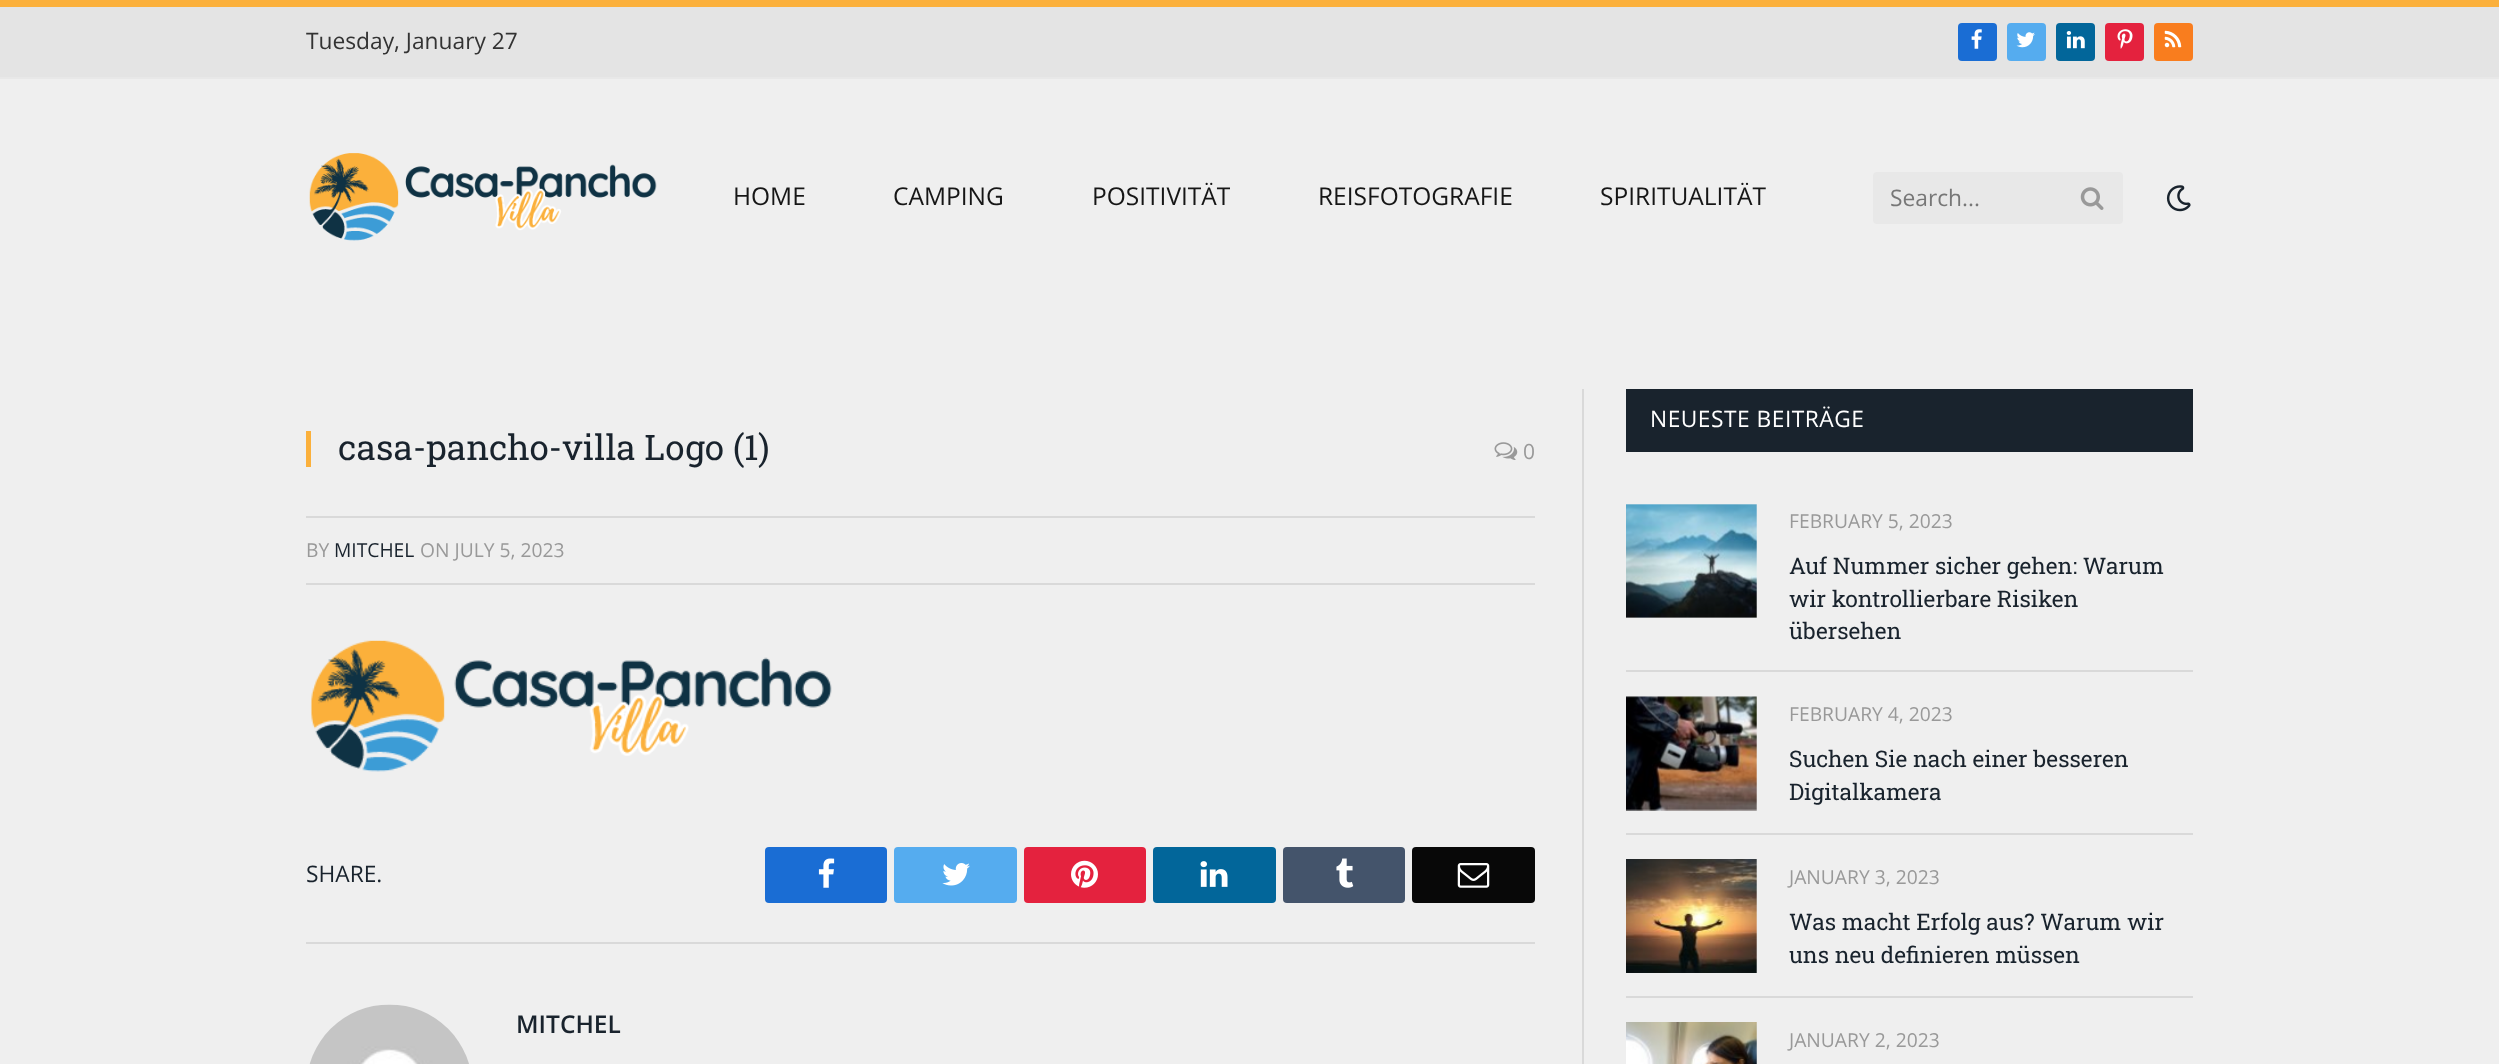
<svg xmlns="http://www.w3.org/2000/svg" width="2499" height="1064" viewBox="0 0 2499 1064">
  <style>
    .t1 { font: 22.75px Open Sans; fill: #333; }
    .t2 { font: 24.5px Open Sans; fill: #161616; }
    .t3 { font: 22.75px Open Sans; fill: #777; }
    .t4 { font: 35px Roboto Slab; fill: #19232d; }
    .t5 { font: 21px Open Sans; fill: #999; }
    .t6 { font: 19.25px Open Sans; fill: #999; }
    .t7 { font: 19.25px Open Sans; fill: #19232d; }
    .t8 { font: 22.75px Open Sans; fill: #19232d; }
    .t9 { font: 600 24.5px Open Sans; fill: #19232d; }
    .t10 { font: 22.75px Open Sans; letter-spacing: 0.5px; fill: #fff; }
    .t11 { font: 22.75px Roboto Slab; fill: #19232d; }
  </style>
  <rect width="100%" height="100%" fill="#efefef"/>
  <rect x="0" y="7" width="2499" height="70" fill="#e4e4e4"/>
  <rect x="0" y="0" width="2499" height="7" fill="#fbb03b"/>
  <rect x="0" y="77" width="2499" height="2" fill="#e8e8e8"/>
  <text x="306" y="49" class="t1">Tuesday, January 27</text>
  <rect x="1958" y="23" width="39" height="38" rx="4" fill="#1a6dd4"/>
  <image x="1971" y="29" width="11" height="20" href="images/1.png"/>
  <rect x="2007" y="23" width="39" height="38" rx="4" fill="#55acef"/>
  <image x="2016" y="32" width="19" height="16" href="images/2.png"/>
  <rect x="2056" y="23" width="39" height="38" rx="4" fill="#02669a"/>
  <image x="2066" y="31" width="19" height="18" href="images/3.png"/>
  <rect x="2105" y="23" width="39" height="38" rx="4" fill="#e4223e"/>
  <image x="2117" y="29" width="16" height="20" href="images/4.png"/>
  <rect x="2154" y="23" width="39" height="38" rx="4" fill="#f97d1e"/>
  <image x="2164" y="30" width="18" height="18" href="images/5.png"/>
  <image x="309" y="153" width="348" height="88" href="images/6.png"/>
  <text x="733" y="205" class="t2">HOME</text>
  <text x="893" y="205" class="t2">CAMPING</text>
  <text x="1092" y="205" class="t2">POSITIVITÄT</text>
  <text x="1318" y="205" class="t2">REISFOTOGRAFIE</text>
  <text x="1600" y="205" class="t2">SPIRITUALITÄT</text>
  <rect x="1873" y="172" width="250" height="52" rx="4" fill="#e8e8e8"/>
  <text x="1890" y="206" class="t3">Search...</text>
  <image x="2080" y="187" width="24" height="23" href="images/7.png"/>
  <image x="2166" y="185" width="25" height="27" href="images/8.png"/>
  <rect x="306" y="431" width="5" height="36" fill="#fbb03b"/>
  <text x="338" y="460" class="t4">casa-pancho-villa Logo (1)</text>
  <image x="1494" y="442" width="24" height="18" href="images/9.png"/>
  <text x="1523" y="459" class="t5">0</text>
  <rect x="306" y="516" width="1229" height="2" fill="#d9d9d9"/>
  <rect x="306" y="583" width="1229" height="2" fill="#d9d9d9"/>
  <text x="306" y="557" class="t6">BY</text>
  <text x="334" y="557" class="t7">MITCHEL</text>
  <text x="420" y="557" class="t6">ON JULY 5, 2023</text>
  <image x="310" y="640" width="522" height="132" href="images/10.png"/>
  <text x="306" y="882" class="t8">SHARE.</text>
  <rect x="765" y="847" width="122" height="56" rx="4" fill="#1a6dd4"/>
  <image x="818" y="858" width="17" height="30" href="images/11.png"/>
  <rect x="894" y="847" width="123" height="56" rx="4" fill="#55acef"/>
  <image x="942" y="863" width="28" height="23" href="images/12.png"/>
  <rect x="1024" y="847" width="122" height="56" rx="4" fill="#e4223e"/>
  <image x="1071" y="860" width="27" height="28" href="images/13.png"/>
  <rect x="1153" y="847" width="123" height="56" rx="4" fill="#02669a"/>
  <image x="1200" y="861" width="28" height="26" href="images/14.png"/>
  <rect x="1283" y="847" width="122" height="56" rx="4" fill="#44546b"/>
  <image x="1336" y="858" width="18" height="30" href="images/15.png"/>
  <rect x="1412" y="847" width="123" height="56" rx="4" fill="#080808"/>
  <image x="1457" y="863" width="33" height="25" href="images/16.png"/>
  <rect x="306" y="942" width="1229" height="2" fill="#d9d9d9"/>
  <image x="309" y="1004" width="160" height="60" href="images/17.png"/>
  <text x="516" y="1033" class="t9">MITCHEL</text>
  <rect x="1582" y="389" width="2" height="675" fill="#d9d9d9"/>
  <rect x="1626" y="389" width="567" height="63" fill="#19232d"/>
  <text x="1650" y="427" class="t10">NEUESTE BEITRÄGE</text>
  <image x="1626" y="504" width="131" height="114" href="images/18.png"/>
  <text x="1789" y="528" class="t6">FEBRUARY 5, 2023</text>
  <text x="1789" y="574" class="t11">Auf Nummer sicher gehen: Warum</text>
  <text x="1789" y="607" class="t11">wir kontrollierbare Risiken</text>
  <text x="1789" y="639" class="t11">übersehen</text>
  <rect x="1626" y="670" width="567" height="2" fill="#d9d9d9"/>
  <image x="1626" y="696" width="131" height="115" href="images/19.png"/>
  <text x="1789" y="721" class="t6">FEBRUARY 4, 2023</text>
  <text x="1789" y="767" class="t11">Suchen Sie nach einer besseren</text>
  <text x="1789" y="800" class="t11">Digitalkamera</text>
  <rect x="1626" y="833" width="567" height="2" fill="#d9d9d9"/>
  <image x="1626" y="859" width="131" height="114" href="images/20.png"/>
  <text x="1789" y="884" class="t6">JANUARY 3, 2023</text>
  <text x="1789" y="930" class="t11">Was macht Erfolg aus? Warum wir</text>
  <text x="1789" y="963" class="t11">uns neu definieren müssen</text>
  <rect x="1626" y="996" width="567" height="2" fill="#d9d9d9"/>
  <image x="1626" y="1022" width="131" height="42" href="images/21.png"/>
  <text x="1789" y="1047" class="t6">JANUARY 2, 2023</text>
</svg>
